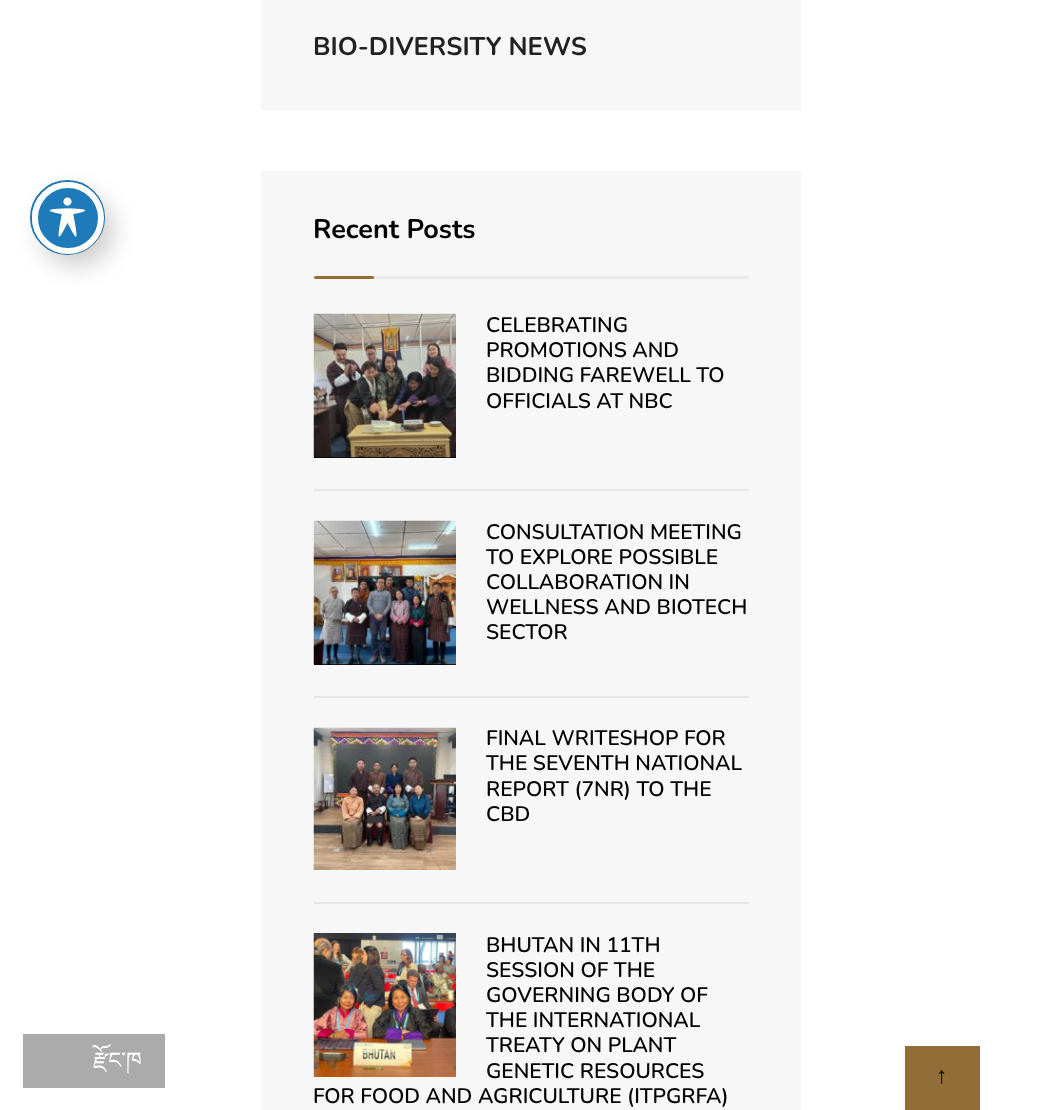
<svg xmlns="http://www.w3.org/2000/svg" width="1060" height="1110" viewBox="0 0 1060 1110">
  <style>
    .t1 { font: bold 25.5px Nunito; fill: #222; }
    .t2 { font: bold 27px Nunito; fill: #000; }
    .t3 { font: 600 21px Nunito; fill: #000; }
    .t4 { font: 22.5px Liberation Serif; fill: #000; }
    .t5 { font: 22.5px Noto Serif Tibetan; fill: #fff; }
  </style>
  <rect width="100%" height="100%" fill="#fff"/>
  <circle cx="67.5" cy="217.5" r="36.5" fill="none" stroke="#1e7ab9" stroke-width="2"/>
  <rect x="41" y="194" width="72" height="72" rx="36" fill="#00000033" filter="blur(12px)"/>
  <circle cx="68" cy="218" r="33" fill="#1e7ab9" stroke="#fff" stroke-width="6"/>
  <image x="49" y="197" width="37" height="40" href="images/1.png"/>
  <rect x="261" y="0" width="540" height="111" fill="#f7f7f7"/>
  <text x="313" y="55" class="t1">BIO-DIVERSITY NEWS</text>
  <rect x="261" y="171" width="540" height="939" fill="#f7f7f7"/>
  <text x="313" y="238" class="t2">Recent Posts</text>
  <rect x="371" y="276" width="378" height="3" rx="1.5" fill="#eaeaea"/>
  <rect x="314" y="276" width="60" height="3" rx="1.5" fill="#916d37"/>
  <rect x="314" y="457" width="142" height="1" fill="#000"/>
  <image x="313" y="313" width="143" height="145" href="images/2.png"/>
  <text x="486" y="332" class="t3">CELEBRATING</text>
  <text x="486" y="357" class="t3">PROMOTIONS AND</text>
  <text x="486" y="382" class="t3">BIDDING FAREWELL TO</text>
  <text x="486" y="408" class="t3">OFFICIALS AT NBC</text>
  <rect x="314" y="489" width="435" height="2" fill="#e6e6e6"/>
  <rect x="314" y="664" width="142" height="1" fill="#000"/>
  <image x="313" y="520" width="143" height="145" href="images/3.png"/>
  <text x="486" y="539" class="t3">CONSULTATION MEETING</text>
  <text x="486" y="564" class="t3">TO EXPLORE POSSIBLE</text>
  <text x="486" y="589" class="t3">COLLABORATION IN</text>
  <text x="486" y="614" class="t3">WELLNESS AND BIOTECH</text>
  <text x="486" y="639" class="t3">SECTOR</text>
  <rect x="314" y="696" width="435" height="2" fill="#e6e6e6"/>
  <image x="313" y="727" width="143" height="143" href="images/4.png"/>
  <text x="486" y="745" class="t3">FINAL WRITESHOP FOR</text>
  <text x="486" y="770" class="t3">THE SEVENTH NATIONAL</text>
  <text x="486" y="796" class="t3">REPORT (7NR) TO THE</text>
  <text x="486" y="821" class="t3">CBD</text>
  <rect x="314" y="902" width="435" height="2" fill="#e6e6e6"/>
  <image x="313" y="933" width="143" height="144" href="images/5.png"/>
  <text x="486" y="952" class="t3">BHUTAN IN 11TH</text>
  <text x="486" y="977" class="t3">SESSION OF THE</text>
  <text x="486" y="1002" class="t3">GOVERNING BODY OF</text>
  <text x="486" y="1027" class="t3">THE INTERNATIONAL</text>
  <text x="486" y="1052" class="t3">TREATY ON PLANT</text>
  <text x="486" y="1078" class="t3">GENETIC RESOURCES</text>
  <text x="313" y="1103" class="t3">FOR FOOD AND AGRICULTURE (ITPGRFA)</text>
  <rect x="905" y="1046" width="75" height="64" fill="#916d37"/>
  <text x="936" y="1083" class="t4">↑</text>
  <rect x="23" y="1034" width="142" height="54" fill="#ababab"/>
  <text x="93" y="1068" class="t5">རྫོང་ཁ</text>
</svg>
